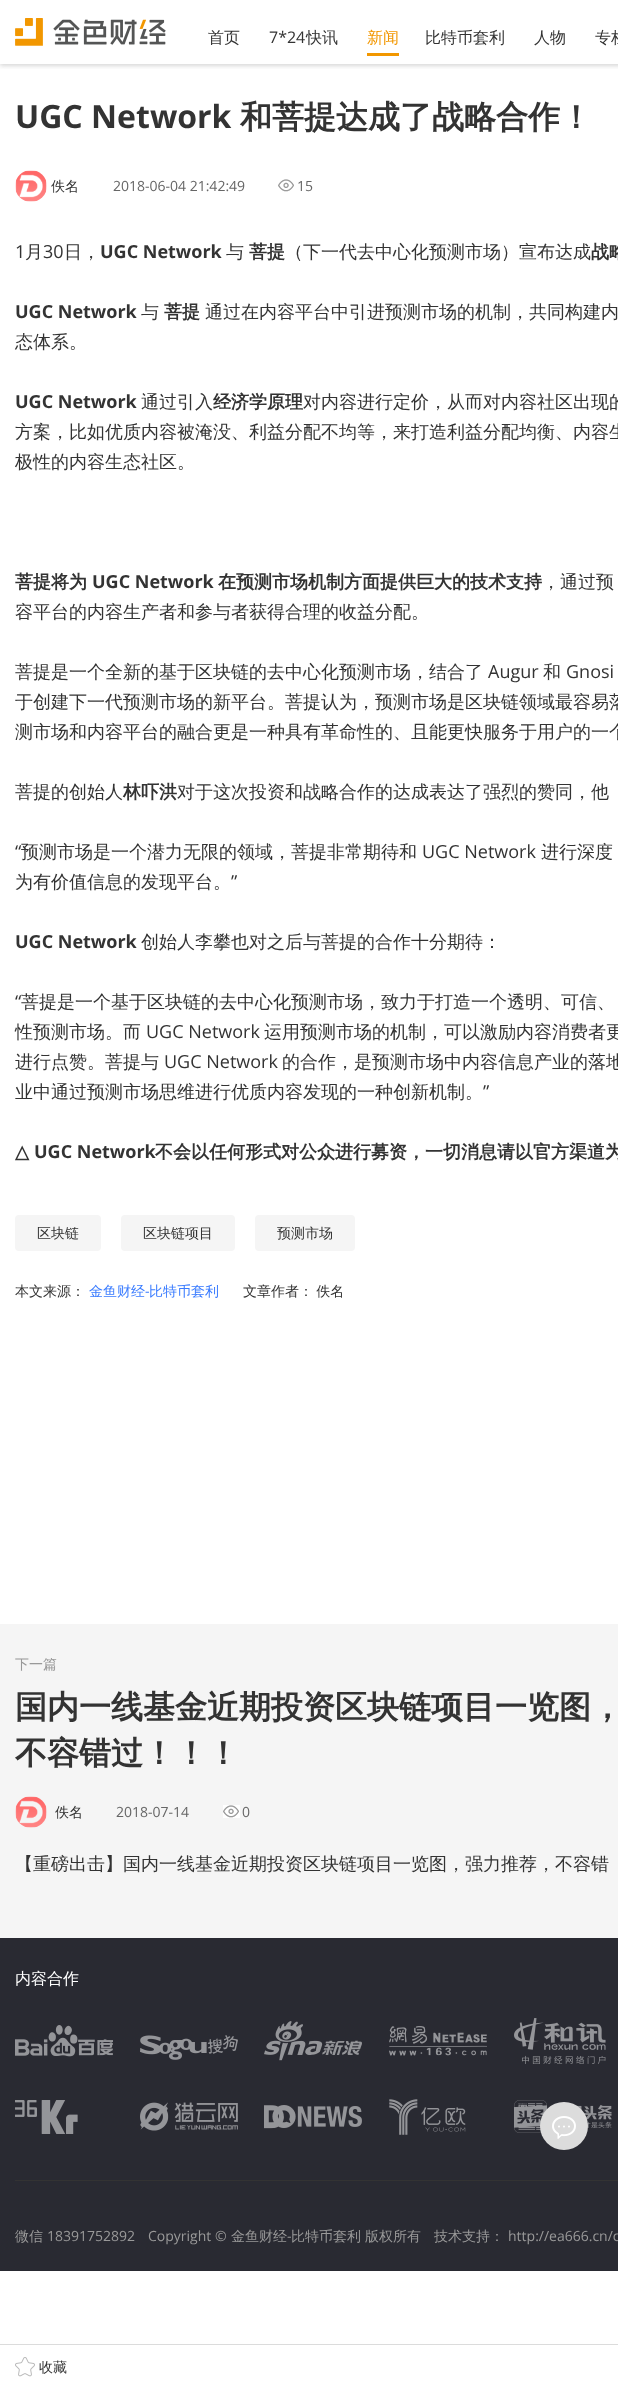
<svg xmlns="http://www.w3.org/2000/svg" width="618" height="2389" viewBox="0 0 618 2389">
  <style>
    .t1 { font: 500 16px WenQuanYi Zen Hei; fill: #333; }
    .t2 { font: 16px Open Sans; fill: #333; }
    .t3 { font: 500 16px WenQuanYi Zen Hei; fill: #f29700; }
    .t4 { font: bold 32px Open Sans; fill: #333; }
    .t5 { font: bold 32px WenQuanYi Zen Hei; fill: #333; }
    .t6 { font: 500 14px WenQuanYi Zen Hei; fill: #333; }
    .t7 { font: 14px Open Sans; fill: #666; }
    .t8 { font: 18px Open Sans; fill: #333; }
    .t9 { font: 500 18px WenQuanYi Zen Hei; fill: #333; }
    .t10 { font: bold 18px Open Sans; fill: #333; }
    .t11 { font: bold 18px WenQuanYi Zen Hei; fill: #333; }
    .t12 { font: bold 18px DejaVu Sans; fill: #333; }
    .t13 { font: 500 14px WenQuanYi Zen Hei; fill: #397bff; }
    .t14 { font: 14px Open Sans; fill: #397bff; }
    .t15 { font: 500 14px WenQuanYi Zen Hei; fill: #999; }
    .t16 { font: 500 16px WenQuanYi Zen Hei; fill: #fff; }
    .t17 { font: 14px Open Sans; fill: #999; }
  </style>
  <defs>
    <clipPath id="clip1"><rect x="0" y="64" width="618" height="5"/></clipPath>
  </defs>
  <rect width="100%" height="100%" fill="#fff"/>
  <g clip-path="url(#clip1)">
    <rect x="0" y="2" width="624" height="64" fill="#48484836" filter="blur(2px)"/>
  </g>
  <image x="15" y="18" width="151" height="28" href="images/1.png"/>
  <text x="208" y="43" class="t1">首页</text>
  <text x="269" y="43" class="t2">7*24</text>
  <text x="306" y="43" class="t1">快讯</text>
  <rect x="367" y="53" width="32" height="3" fill="#f29700"/>
  <text x="367" y="43" class="t3">新闻</text>
  <text x="425" y="43" class="t1">比特币套利</text>
  <text x="534" y="43" class="t1">人物</text>
  <text x="595" y="43" class="t1">专栏</text>
  <rect x="0" y="1938" width="618" height="333" fill="#292a32"/>
  <image x="514" y="2100" width="98" height="33" href="images/16.png"/>
  <circle cx="564" cy="2126" r="24" fill="#dcdcdc"/>
  <image x="552" y="2116" width="24" height="23" href="images/2.png"/>
  <text x="15" y="128" class="t4">UGC Network</text>
  <text x="240" y="128" class="t5">和菩提达成了战略合作！</text>
  <image x="15" y="170" width="32" height="32" href="images/3.png"/>
  <text x="51" y="191" class="t6">佚名</text>
  <text x="113" y="191" class="t7">2018-06-04 21:42:49</text>
  <image x="278" y="179" width="16" height="13" href="images/4.png"/>
  <text x="297" y="191" class="t7">15</text>
  <text x="15" y="258" class="t8">1</text>
  <text x="25" y="258" class="t9">月</text>
  <text x="43" y="258" class="t8">30</text>
  <text x="64" y="258" class="t9">日，</text>
  <text x="100" y="258" class="t10">UGC Network</text>
  <text x="226" y="258" class="t9">与</text>
  <text x="249" y="258" class="t11">菩提</text>
  <text x="285" y="258" class="t9">（下一代去中心化预测市场）宣布达成</text>
  <text x="591" y="258" class="t11">战略</text>
  <text x="15" y="318" class="t10">UGC Network</text>
  <text x="141" y="318" class="t9">与</text>
  <text x="164" y="318" class="t11">菩提</text>
  <text x="205" y="318" class="t9">通过在内容平台中引进预测市场的机制，共同构建内</text>
  <text x="15" y="348" class="t9">态体系。</text>
  <text x="15" y="408" class="t10">UGC Network</text>
  <text x="141" y="408" class="t9">通过引入</text>
  <text x="213" y="408" class="t11">经济学原理</text>
  <text x="303" y="408" class="t9">对内容进行定价，从而对内容社区出现的</text>
  <text x="15" y="438" class="t9">方案，比如优质内容被淹没、利益分配不均等，来打造利益分配均衡、内容生</text>
  <text x="15" y="468" class="t9">极性的内容生态社区。</text>
  <text x="15" y="588" class="t11">菩提将为</text>
  <text x="92" y="588" class="t10">UGC Network</text>
  <text x="218" y="588" class="t11">在预测市场机制方面提供巨大的技术支持</text>
  <text x="542" y="588" class="t9">，通过预</text>
  <text x="15" y="618" class="t9">容平台的内容生产者和参与者获得合理的收益分配。</text>
  <text x="15" y="678" class="t9">菩提是一个全新的基于区块链的去中心化预测市场，结合了</text>
  <text x="488" y="678" class="t8">Augur</text>
  <text x="543" y="678" class="t9">和</text>
  <text x="566" y="678" class="t8">Gnosi</text>
  <text x="15" y="708" class="t9">于创建下一代预测市场的新平台。菩提认为，预测市场是区块链领域最容易落</text>
  <text x="15" y="738" class="t9">测市场和内容平台的融合更是一种具有革命性的、且能更快服务于用户的一个</text>
  <text x="15" y="798" class="t9">菩提的创始人</text>
  <text x="123" y="798" class="t11">林吓洪</text>
  <text x="177" y="798" class="t9">对于这次投资和战略合作的达成表达了强烈的赞同，他</text>
  <text x="15" y="858" class="t8">“</text>
  <text x="21" y="858" class="t9">预测市场是一个潜力无限的领域，菩提非常期待和</text>
  <text x="422" y="858" class="t8">UGC Network</text>
  <text x="541" y="858" class="t9">进行深度</text>
  <text x="15" y="888" class="t9">为有价值信息的发现平台。</text>
  <text x="231" y="888" class="t8">”</text>
  <text x="15" y="948" class="t10">UGC Network</text>
  <text x="141" y="948" class="t9">创始人李攀也对之后与菩提的合作十分期待：</text>
  <text x="15" y="1008" class="t8">“</text>
  <text x="21" y="1008" class="t9">菩提是一个基于区块链的去中心化预测市场，致力于打造一个透明、可信、</text>
  <text x="15" y="1038" class="t9">性预测市场。而</text>
  <text x="146" y="1038" class="t8">UGC Network</text>
  <text x="264" y="1038" class="t9">运用预测市场的机制，可以激励内容消费者更</text>
  <text x="15" y="1068" class="t9">进行点赞。菩提与</text>
  <text x="164" y="1068" class="t8">UGC Network</text>
  <text x="282" y="1068" class="t9">的合作，是预测市场中内容信息产业的落地</text>
  <text x="15" y="1098" class="t9">业中通过预测市场思维进行优质内容发现的一种创新机制。</text>
  <text x="483" y="1098" class="t8">”</text>
  <text x="15" y="1158" class="t12">△</text>
  <text x="34" y="1158" class="t10">UGC Network</text>
  <text x="155" y="1158" class="t11">不会以任何形式对公众进行募资，一切消息请以官方渠道为</text>
  <rect x="15" y="1215" width="86" height="36" rx="4" fill="#f5f5f5"/>
  <text x="37" y="1238" class="t6">区块链</text>
  <rect x="121" y="1215" width="114" height="36" rx="4" fill="#f5f5f5"/>
  <text x="143" y="1238" class="t6">区块链项目</text>
  <rect x="255" y="1215" width="100" height="36" rx="4" fill="#f5f5f5"/>
  <text x="277" y="1238" class="t6">预测市场</text>
  <text x="15" y="1296" class="t6">本文来源：</text>
  <text x="89" y="1296" class="t13">金鱼财经</text>
  <text x="145" y="1296" class="t14">-</text>
  <text x="149" y="1296" class="t13">比特币套利</text>
  <text x="243" y="1296" word-spacing="-1" class="t6">文章作者： 佚名</text>
  <rect x="0" y="1624" width="618" height="314" fill="#f5f5f5"/>
  <text x="15" y="1669" class="t15">下一篇</text>
  <text x="15" y="1718" class="t5">国内一线基金近期投资区块链项目一览图，</text>
  <text x="15" y="1764" class="t5">不容错过！！！</text>
  <image x="15" y="1796" width="32" height="32" href="images/5.png"/>
  <text x="55" y="1817" class="t6">佚名</text>
  <text x="116" y="1817" class="t7">2018-07-14</text>
  <image x="223" y="1805" width="17" height="13" href="images/6.png"/>
  <text x="242" y="1817" class="t7">0</text>
  <text x="15" y="1870" class="t9">【重磅出击】国内一线基金近期投资区块链项目一览图，强力推荐，不容错</text>
  <rect x="15" y="2180" width="603" height="1" fill="#333"/>
  <text x="15" y="1984" class="t16">内容合作</text>
  <image x="15" y="2025" width="98" height="32" href="images/7.png"/>
  <image x="140" y="2035" width="98" height="25" href="images/8.png"/>
  <image x="264" y="2021" width="98" height="40" href="images/9.png"/>
  <image x="389" y="2026" width="98" height="30" href="images/10.png"/>
  <image x="514" y="2018" width="92" height="46" href="images/11.png"/>
  <image x="15" y="2100" width="63" height="34" href="images/12.png"/>
  <image x="140" y="2102" width="98" height="29" href="images/13.png"/>
  <image x="264" y="2105" width="98" height="24" href="images/14.png"/>
  <image x="389" y="2099" width="77" height="36" href="images/15.png"/>
  <text x="15" y="2241" class="t15">微信</text>
  <text x="47" y="2241" class="t17">18391752892</text>
  <text x="148" y="2241" class="t17">Copyright ©</text>
  <text x="231" y="2241" class="t15">金鱼财经</text>
  <text x="287" y="2241" class="t17">-</text>
  <text x="291" y="2241" class="t15">比特币套利</text>
  <text x="365" y="2241" class="t15">版权所有</text>
  <text x="434" y="2241" class="t15">技术支持：</text>
  <text x="508" y="2241" class="t17">http://ea666.cn/c</text>
  <rect x="0" y="2344" width="618" height="1" fill="#dcdcdc"/>
  <image x="15" y="2357" width="20" height="20" href="images/17.png"/>
  <text x="39" y="2372" class="t6">收藏</text>
</svg>
